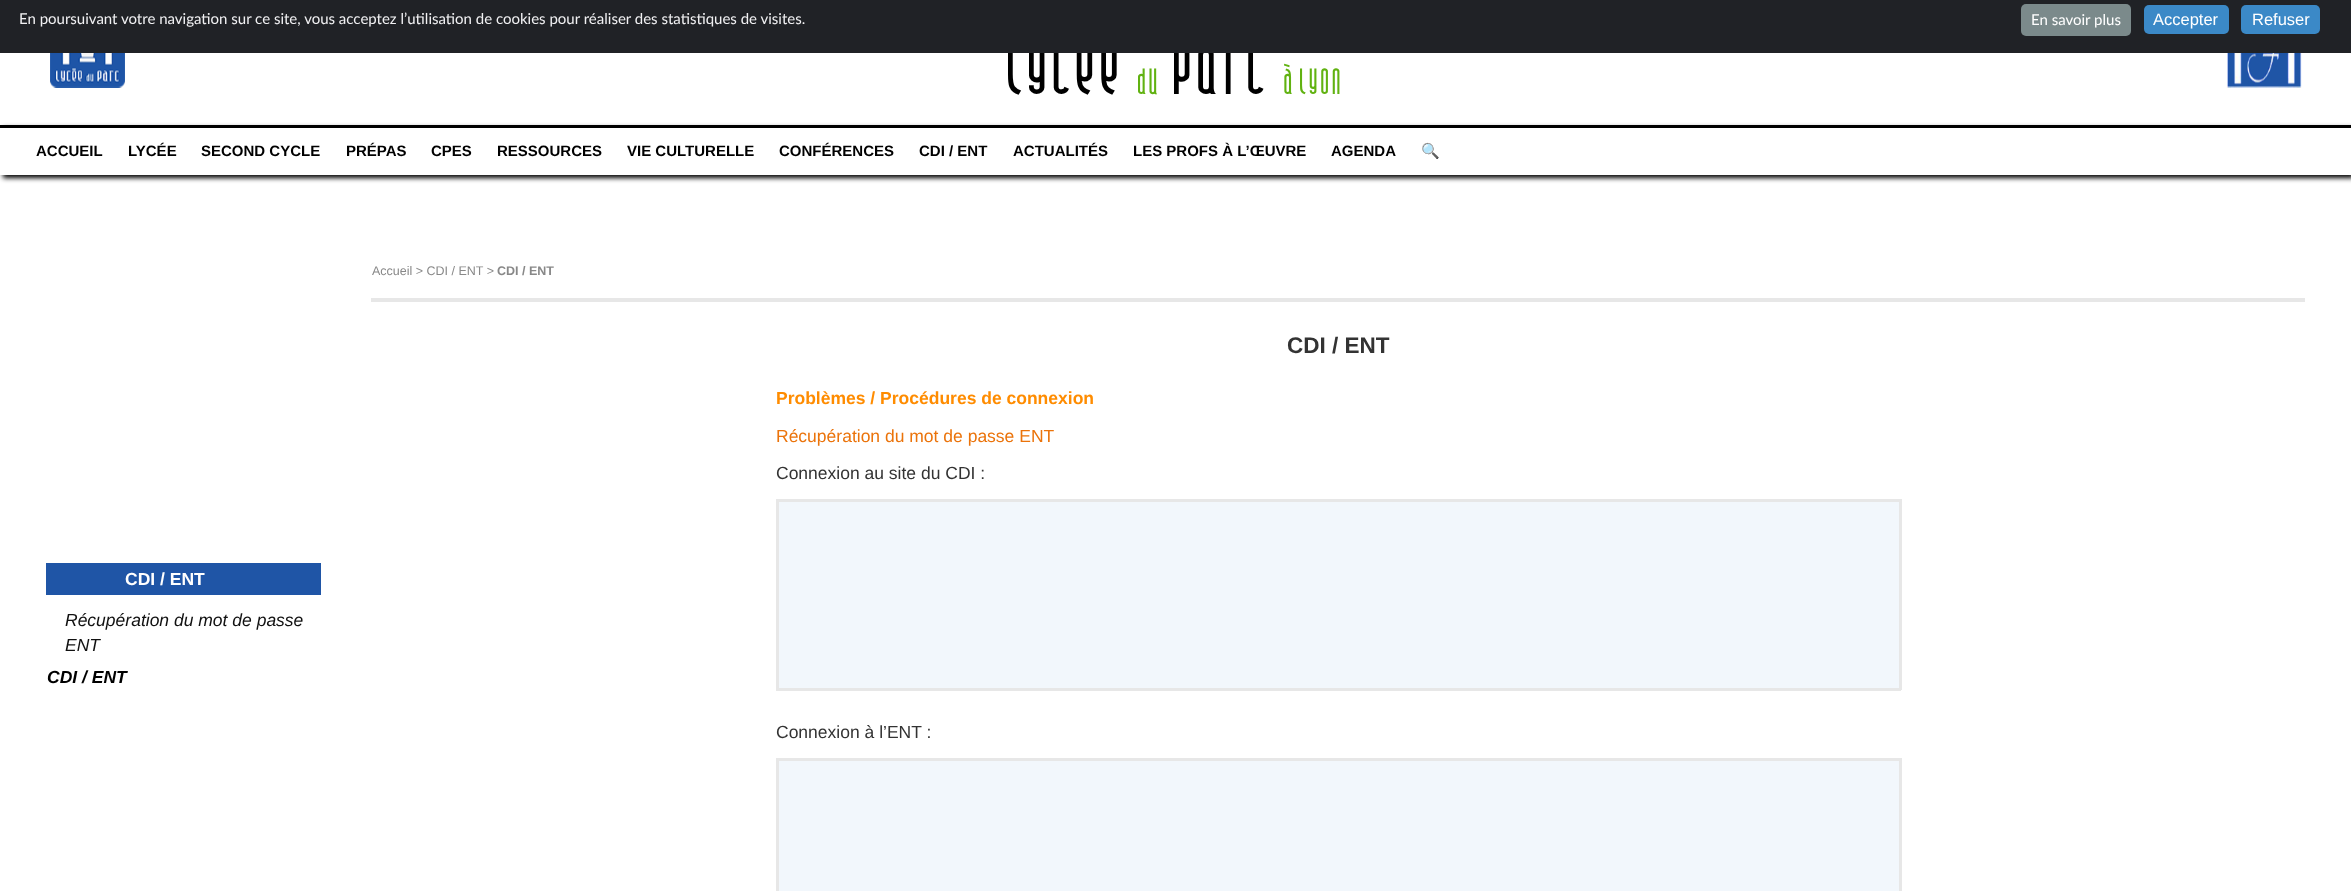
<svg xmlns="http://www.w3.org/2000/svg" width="2351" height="891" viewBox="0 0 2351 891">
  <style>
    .t1 { font: 88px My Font; letter-spacing: 1.25px; fill: #000; }
    .t2 { font: 15px Lato; fill: #f1f1f3; }
    .t3 { font: 15px Lato; fill: #fff; }
    .t4 { font: 16.5px Liberation Sans; fill: #fff; }
    .t5 { font: 38px My Font; letter-spacing: 1.25px; fill: #61b211; }
    .t6 { font: bold 15px Liberation Sans; fill: #000; }
    .t7 { font: bold 15px Noto Color Emoji; fill: #000; }
    .t8 { font: bold 17.5px Liberation Sans; fill: #fff; }
    .t9 { font: italic 17.5px Liberation Sans; fill: #111; }
    .t10 { font: italic bold 17.5px Liberation Sans; fill: #000; }
    .t11 { font: 12.5px Liberation Sans; fill: #888; }
    .t12 { font: bold 12.5px Liberation Sans; fill: #888; }
    .t13 { font: bold 22.5px Liberation Sans; fill: #333; }
    .t14 { font: bold 17.5px Liberation Sans; fill: #ff8c00; }
    .t15 { font: 17.5px Liberation Sans; fill: #eb730a; }
    .t16 { font: 17.5px Liberation Sans; fill: #333; }
  </style>
  <defs>
    <clipPath id="clip1"><path d="M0 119H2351V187H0ZM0 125H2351V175H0Z" clip-rule="evenodd"/></clipPath>
  </defs>
  <rect width="100%" height="100%" fill="#fff"/>
  <text x="1008" y="94" class="t1">Lycée</text>
  <text x="1174" y="94" class="t1">Parc</text>
  <rect x="0" y="0" width="2351" height="53" fill="#202226"/>
  <text x="19" y="24" class="t2">En poursuivant votre navigation sur ce site, vous acceptez l’utilisation de cookies pour réaliser des statistiques de visites.</text>
  <rect x="2021" y="4" width="110" height="32" rx="5" fill="#7b8a8b"/>
  <text x="2031" y="25" class="t3">En savoir plus</text>
  <rect x="2144" y="5" width="85" height="29" rx="5" fill="#3b89c7"/>
  <text x="2153" y="25" class="t4">Accepter</text>
  <rect x="2241" y="5" width="79" height="29" rx="5" fill="#3b89c7"/>
  <text x="2252" y="25" class="t4">Refuser</text>
  <image x="50" y="53" width="75" height="35" href="images/1.png"/>
  <text x="1138" y="94" class="t5">du</text>
  <text x="1284" y="94" class="t5">à Lyon</text>
  <image x="2226" y="53" width="76" height="35" href="images/2.png"/>
  <g clip-path="url(#clip1)">
    <rect x="3" y="128" width="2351" height="50" fill="#000" filter="blur(2.5px)"/>
  </g>
  <rect x="0" y="125" width="2351" height="3" fill="#000"/>
  <text x="36" y="156" class="t6">ACCUEIL</text>
  <text x="128" y="156" class="t6">LYCÉE</text>
  <text x="201" y="156" class="t6">SECOND CYCLE</text>
  <text x="346" y="156" class="t6">PRÉPAS</text>
  <text x="431" y="156" class="t6">CPES</text>
  <text x="497" y="156" class="t6">RESSOURCES</text>
  <text x="627" y="156" class="t6">VIE CULTURELLE</text>
  <text x="779" y="156" class="t6">CONFÉRENCES</text>
  <text x="919" y="156" class="t6">CDI / ENT</text>
  <text x="1013" y="156" class="t6">ACTUALITÉS</text>
  <text x="1133" y="156" class="t6">LES PROFS À L’ŒUVRE</text>
  <text x="1331" y="156" class="t6">AGENDA</text>
  <text x="1421" y="156" class="t7">🔍</text>
  <rect x="46" y="563" width="275" height="32" fill="#1f55a6"/>
  <text x="125" y="585" class="t8">CDI / ENT</text>
  <text x="65" y="626" class="t9">Récupération du mot de passe</text>
  <text x="65" y="651" class="t9">ENT</text>
  <text x="47" y="683" class="t10">CDI / ENT</text>
  <text x="372" y="275" class="t11">Accueil &gt; CDI / ENT &gt;</text>
  <text x="497" y="275" class="t12">CDI / ENT</text>
  <rect x="371" y="298" width="1934" height="4" fill="#e7e7e7"/>
  <text x="1287" y="353" class="t13">CDI / ENT</text>
  <text x="776" y="404" class="t14">Problèmes / Procédures de connexion</text>
  <text x="776" y="442" class="t15">Récupération du mot de passe ENT</text>
  <text x="776" y="479" class="t16">Connexion au site du CDI :</text>
  <rect x="776" y="499" width="1125" height="3" fill="#e7e7e7"/>
  <rect x="1899" y="499" width="3" height="191" fill="#e7e7e7"/>
  <rect x="776" y="688" width="1125" height="3" fill="#e7e7e7"/>
  <rect x="776" y="499" width="3" height="191" fill="#e7e7e7"/>
  <rect x="779" y="502" width="1120" height="186" fill="#f2f7fc"/>
  <text x="776" y="738" class="t16">Connexion à l’ENT :</text>
  <rect x="776" y="758" width="1125" height="3" fill="#e7e7e7"/>
  <rect x="1899" y="758" width="3" height="133" fill="#e7e7e7"/>
  <rect x="776" y="758" width="3" height="133" fill="#e7e7e7"/>
  <rect x="779" y="761" width="1120" height="130" fill="#f2f7fc"/>
</svg>
